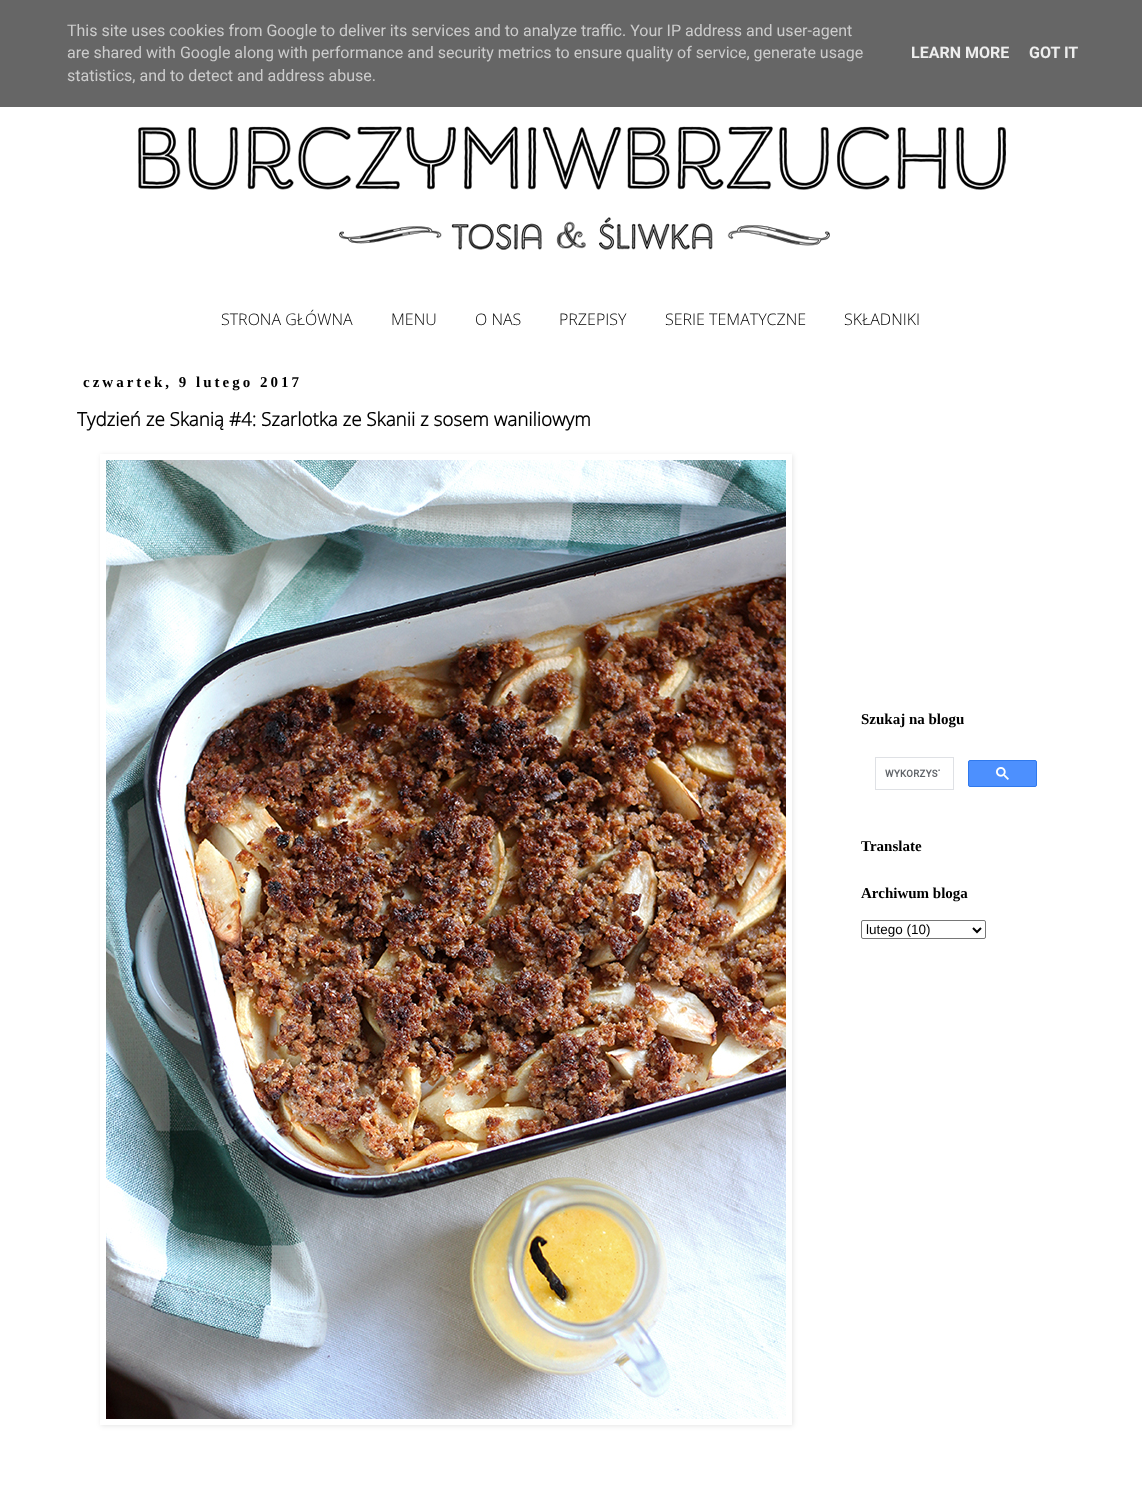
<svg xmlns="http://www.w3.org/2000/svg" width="1142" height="1488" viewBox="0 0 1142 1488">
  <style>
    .t1 { font: 16px Roboto; fill: #ccc; }
    .t2 { font: bold 16px Roboto; fill: #eee; }
    .t3 { font: 300 16px Open Sans; fill: #000; }
    .t4 { font: bold 15px Liberation Serif; letter-spacing: 3px; fill: #000; }
    .t5 { font: bold 18.75px Open Sans; fill: #000; }
    .t6 { font: bold 15px Liberation Serif; fill: #000; }
    .t7 { font: 13.5px Liberation Sans; fill: #000; }
  </style>
  <defs>
    <clipPath id="clip1"><path d="M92 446H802V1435H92ZM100 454H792V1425H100Z" clip-rule="evenodd"/></clipPath>
  </defs>
  <rect width="100%" height="100%" fill="#fff"/>
  <rect x="0" y="0" width="1142" height="107" fill="#666"/>
  <text x="67" y="36" class="t1">This site uses cookies from Google to deliver its services and to analyze traffic. Your IP address and user-agent</text>
  <text x="67" y="58" class="t1">are shared with Google along with performance and security metrics to ensure quality of service, generate usage</text>
  <text x="67" y="81" class="t1">statistics, and to detect and address abuse.</text>
  <text x="911" y="58" class="t2">LEARN MORE</text>
  <text x="1029" y="58" class="t2">GOT IT</text>
  <image x="138" y="126" width="868" height="124" href="images/1.png"/>
  <text x="221" y="325" class="t3">STRONA GŁÓWNA</text>
  <text x="391" y="325" class="t3">MENU</text>
  <text x="475" y="325" class="t3">O NAS</text>
  <text x="559" y="325" class="t3">PRZEPISY</text>
  <text x="665" y="325" class="t3">SERIE TEMATYCZNE</text>
  <text x="844" y="325" class="t3">SKŁADNIKI</text>
  <text x="83" y="387" class="t4">czwartek, 9 lutego 2017</text>
  <text x="77" y="426" class="t5">Tydzień ze Skanią #4: Szarlotka ze Skanii z sosem waniliowym</text>
  <g clip-path="url(#clip1)">
    <rect x="101" y="455" width="692" height="971" fill="#0000001a" filter="blur(2.5px)"/>
  </g>
  <image x="106" y="460" width="680" height="959" href="images/2.png"/>
  <text x="861" y="724" class="t6">Szukaj na blogu</text>
  <rect x="875.5" y="757.5" width="78" height="32" fill="none" stroke="#dfe1e5"/>
  <image x="885" y="769" width="55" height="8" href="images/3.png"/>
  <rect x="968.5" y="760.5" width="68" height="26" rx="1.5" fill="#4d90fe" stroke="#3079ed"/>
  <image x="996" y="767" width="13" height="13" href="images/4.png"/>
  <text x="861" y="851" class="t6">Translate</text>
  <text x="861" y="898" class="t6">Archiwum bloga</text>
  <rect x="861.5" y="920.5" width="124" height="18" rx="1.5" fill="none" stroke="#767676"/>
  <path d="M973 928L977 932L981 928" fill="none" stroke="#000" stroke-width="2"/>
  <text x="866" y="934" class="t7">lutego (10)</text>
</svg>
